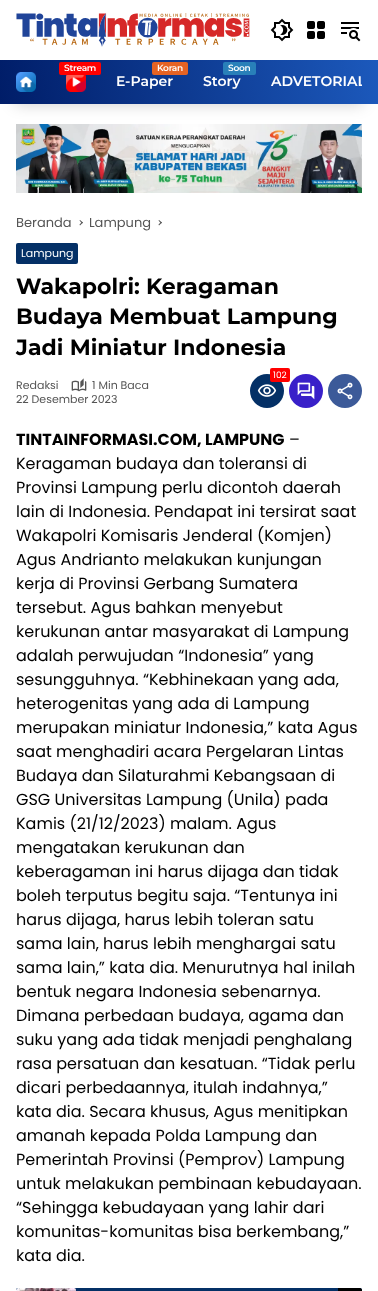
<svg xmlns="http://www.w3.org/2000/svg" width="378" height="1291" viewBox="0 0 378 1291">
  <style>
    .t1 { font: 600 9px Montserrat; letter-spacing: -0.25px; fill: #fff; }
    .t2 { font: 600 14px Montserrat; fill: #fff; }
    .t3 { font: 13px Poppins; fill: #555; }
    .t4 { font: 11px Poppins; fill: #fff; }
    .t5 { font: bold 22px Montserrat; fill: #000; }
    .t6 { font: 9px Poppins; fill: #fff; }
    .t7 { font: 11px Poppins; fill: #555; }
    .t8 { font: bold 16px Poppins; fill: #000; }
    .t9 { font: 16px Poppins; fill: #000; }
  </style>
  <defs>
    <linearGradient id="g1" gradientUnits="userSpaceOnUse" x1="1.9" y1="115" x2="376" y2="49"><stop offset="0" stop-color="#001d68"/><stop offset="1" stop-color="#1c59bc"/></linearGradient>
    <clipPath id="clip1"><rect x="16" y="60" width="346" height="44"/></clipPath>
  </defs>
  <rect width="100%" height="100%" fill="#fff"/>
  <image x="16" y="13" width="234" height="34" href="images/1.png"/>
  <image x="270" y="18" width="24" height="24" href="images/2.png"/>
  <image x="307" y="21" width="18" height="18" href="images/3.png"/>
  <image x="341" y="22" width="20" height="20" href="images/4.png"/>
  <image x="16" y="124" width="346" height="69" href="images/7.png"/>
  <rect x="15" y="90" width="348" height="14" fill="#00000033" filter="blur(7.5px)"/>
  <rect x="0" y="60" width="378" height="44" fill="url(#g1)"/>
  <image x="16" y="72" width="20" height="20" href="images/5.png"/>
  <rect x="59" y="62" width="42" height="13" rx="2" fill="#f00"/>
  <text x="64" y="71" class="t1">Stream</text>
  <image x="66" y="75" width="20" height="17" href="images/6.png"/>
  <rect x="152" y="62" width="36" height="13" rx="2" fill="#e56324"/>
  <text x="157" y="71" class="t1">Koran</text>
  <text x="116" y="86" class="t2">E-Paper</text>
  <rect x="223" y="62" width="33" height="13" rx="2" fill="#2980b9"/>
  <text x="228" y="71" class="t1">Soon</text>
  <text x="203" y="86" class="t2">Story</text>
  <g clip-path="url(#clip1)">
    <text x="271" y="86" class="t2">ADVETORIAL</text>
  </g>
  <text x="16" y="227" class="t3">Beranda</text>
  <path d="M79.5 220.5L80 220L83 222.5L82 223.5Z" fill="#555"/>
  <path d="M79.5 224.5L82 222L83 222.5L80 225.5Z" fill="#555"/>
  <text x="89" y="227" class="t3">Lampung</text>
  <path d="M158.5 220.5L159 220L162 222.5L161 223.5Z" fill="#555"/>
  <path d="M158.5 224.5L161 222L162 222.5L159 225.5Z" fill="#555"/>
  <rect x="16" y="243" width="62" height="21" rx="2" fill="#043066"/>
  <text x="21" y="257" class="t4">Lampung</text>
  <text x="16" y="294" class="t5">Wakapolri: Keragaman</text>
  <text x="16" y="324" class="t5">Budaya Membuat Lampung</text>
  <text x="16" y="355" class="t5">Jadi Miniatur Indonesia</text>
  <circle cx="267" cy="391" r="17" fill="#043066"/>
  <rect x="270" y="368" width="20" height="14" rx="2" fill="#f00"/>
  <text x="273" y="378" class="t6">102</text>
  <image x="257" y="384" width="20" height="13" href="images/8.png"/>
  <circle cx="306" cy="391" r="17" fill="#3920c9"/>
  <image x="297" y="382" width="18" height="18" href="images/9.png"/>
  <circle cx="345" cy="391" r="17" fill="#3c5a99"/>
  <image x="337" y="382" width="16" height="18" href="images/10.png"/>
  <text x="16" y="389" class="t7">Redaksi</text>
  <image x="71" y="378" width="16" height="14" href="images/11.png"/>
  <text x="92" y="389" class="t7">1 Min Baca</text>
  <text x="16" y="403" class="t7">22 Desember 2023</text>
  <text x="16" y="445" class="t8">TINTAINFORMASI.COM, LAMPUNG</text>
  <text x="289" y="445" class="t9">–</text>
  <text x="16" y="469" class="t9">Keragaman budaya dan toleransi di</text>
  <text x="16" y="493" class="t9">Provinsi Lampung perlu dicontoh daerah</text>
  <text x="16" y="517" class="t9">lain di Indonesia. Pendapat ini tersirat saat</text>
  <text x="16" y="541" class="t9">Wakapolri Komisaris Jenderal (Komjen)</text>
  <text x="16" y="565" class="t9">Agus Andrianto melakukan kunjungan</text>
  <text x="16" y="589" class="t9">kerja di Provinsi Gerbang Sumatera</text>
  <text x="16" y="613" class="t9">tersebut. Agus bahkan menyebut</text>
  <text x="16" y="637" class="t9">kerukunan antar masyarakat di Lampung</text>
  <text x="16" y="661" class="t9">adalah perwujudan “Indonesia” yang</text>
  <text x="16" y="685" class="t9">sesungguhnya. “Kebhinekaan yang ada,</text>
  <text x="16" y="709" class="t9">heterogenitas yang ada di Lampung</text>
  <text x="16" y="733" class="t9">merupakan miniatur Indonesia,” kata Agus</text>
  <text x="16" y="757" class="t9">saat menghadiri acara Pergelaran Lintas</text>
  <text x="16" y="781" class="t9">Budaya dan Silaturahmi Kebangsaan di</text>
  <text x="16" y="805" class="t9">GSG Universitas Lampung (Unila) pada</text>
  <text x="16" y="829" class="t9">Kamis (21/12/2023) malam. Agus</text>
  <text x="16" y="853" class="t9">mengatakan kerukunan dan</text>
  <text x="16" y="877" class="t9">keberagaman ini harus dijaga dan tidak</text>
  <text x="16" y="901" class="t9">boleh terputus begitu saja. “Tentunya ini</text>
  <text x="16" y="925" class="t9">harus dijaga, harus lebih toleran satu</text>
  <text x="16" y="949" class="t9">sama lain, harus lebih menghargai satu</text>
  <text x="16" y="973" class="t9">sama lain,” kata dia. Menurutnya hal inilah</text>
  <text x="16" y="997" class="t9">bentuk negara Indonesia sebenarnya.</text>
  <text x="16" y="1021" class="t9">Dimana perbedaan budaya, agama dan</text>
  <text x="16" y="1045" class="t9">suku yang ada tidak menjadi penghalang</text>
  <text x="16" y="1069" class="t9">rasa persatuan dan kesatuan. “Tidak perlu</text>
  <text x="16" y="1093" class="t9">dicari perbedaannya, itulah indahnya,”</text>
  <text x="16" y="1117" class="t9">kata dia. Secara khusus, Agus menitipkan</text>
  <text x="16" y="1141" class="t9">amanah kepada Polda Lampung dan</text>
  <text x="16" y="1165" class="t9">Pemerintah Provinsi (Pemprov) Lampung</text>
  <text x="16" y="1189" class="t9">untuk melakukan pembinaan kebudayaan.</text>
  <text x="16" y="1213" class="t9">“Sehingga kebudayaan yang lahir dari</text>
  <text x="16" y="1237" class="t9">komunitas-komunitas bisa berkembang,”</text>
  <text x="16" y="1261" class="t9">kata dia.</text>
  <rect x="16" y="1288" width="346" height="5" rx="2" fill="#043066"/>
  <image x="16" y="1288" width="60" height="3" href="images/12.png"/>
  <path d="M338 1288H360C361 1288 362 1289 362 1290V1291C362 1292 361 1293 360 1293H338Z" fill="#000"/>
</svg>
